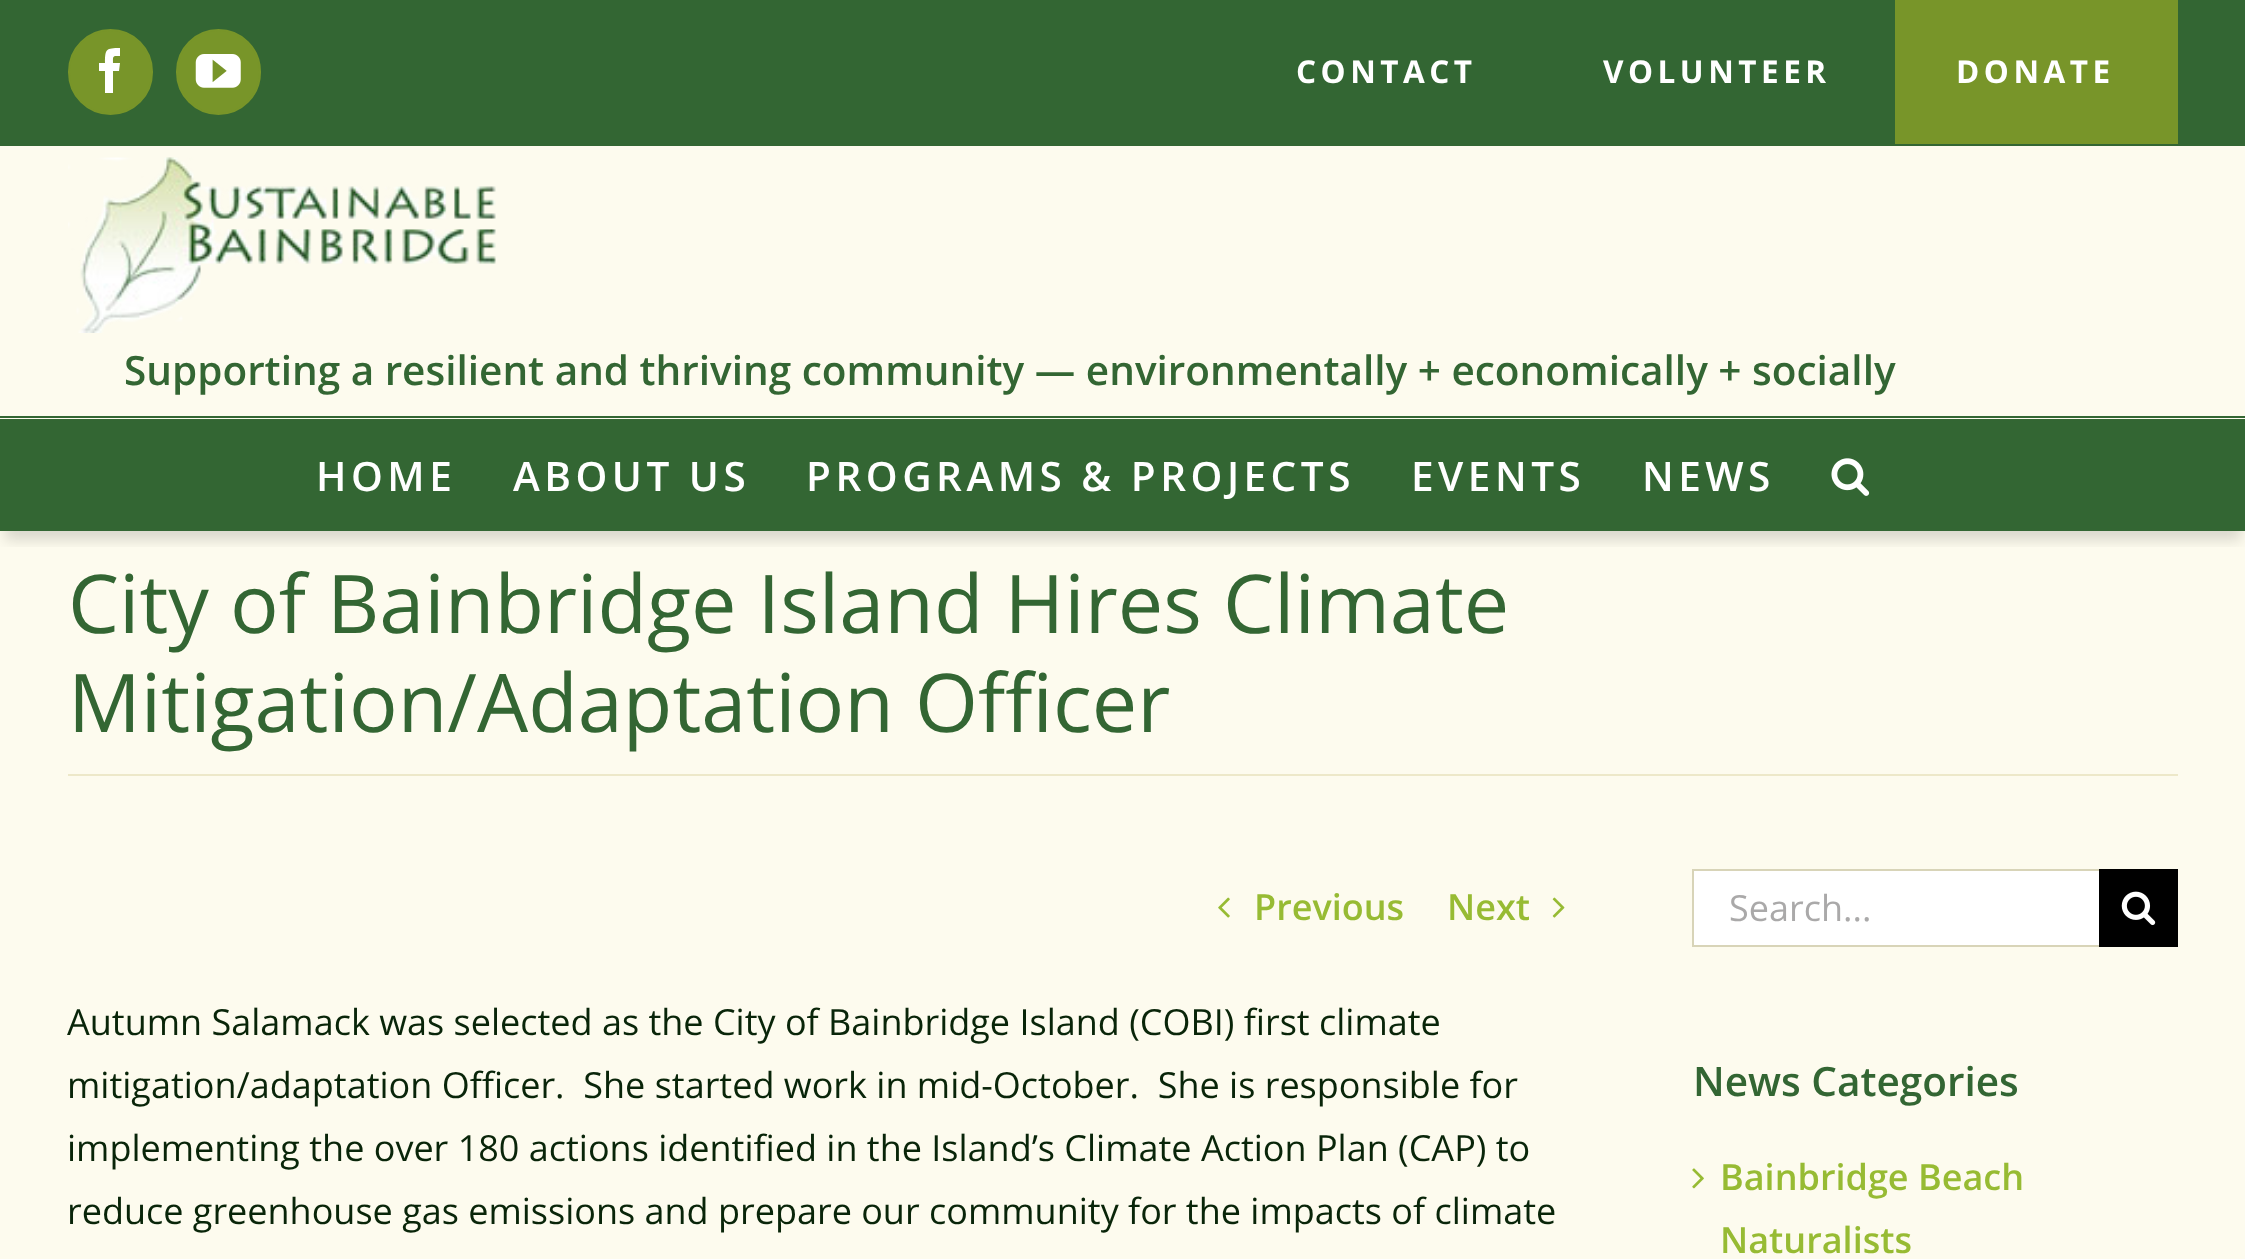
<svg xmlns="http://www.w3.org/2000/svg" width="2245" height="1259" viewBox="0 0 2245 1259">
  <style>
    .t1 { font: bold 31.5px Open Sans; letter-spacing: 4.5px; fill: #fff; }
    .t2 { font: 600 40.5px Open Sans; fill: #363; }
    .t3 { font: 600 40.5px Open Sans; letter-spacing: 4.5px; fill: #fff; }
    .t4 { font: 81px Open Sans; fill: #363; }
    .t5 { font: 600 36px Open Sans; fill: #97bb33; }
    .t6 { font: 36px Open Sans; fill: #092509; }
    .t7 { font: 36px Open Sans; fill: #aaa9a9; }
  </style>
  <defs>
    <clipPath id="clip1"><rect x="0" y="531" width="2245" height="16"/></clipPath>
  </defs>
  <rect width="100%" height="100%" fill="#fdfbee"/>
  <g clip-path="url(#clip1)">
    <rect x="5" y="18" width="2236" height="522" fill="#00000024" filter="blur(7px)"/>
  </g>
  <rect x="0" y="0" width="2245" height="146" fill="#363"/>
  <rect x="69" y="30" width="83" height="84" rx="41.5" fill="#789529" stroke="#789529" stroke-width="2"/>
  <path d="M113 93H105V71H99V63H105C105 49 106 48 120 48V56C112 56 113 56 113 63H120L119 71H113Z" fill="#fff"/>
  <rect x="177" y="30" width="83" height="84" rx="41.5" fill="#789529" stroke="#789529" stroke-width="2"/>
  <image x="195" y="54" width="46" height="34" href="images/1.png"/>
  <text x="1296" y="83" class="t1">CONTACT</text>
  <text x="1603" y="83" class="t1">VOLUNTEER</text>
  <rect x="1895" y="0" width="283" height="144" fill="#789529"/>
  <text x="1956" y="83" class="t1">DONATE</text>
  <rect x="0" y="416" width="2245" height="2" fill="#363"/>
  <image x="68" y="157" width="428" height="176" href="images/2.png"/>
  <text x="124" y="385" class="t2">Supporting a resilient and thriving community — environmentally + economically + socially</text>
  <rect x="0" y="419" width="2245" height="112" fill="#363"/>
  <text x="316" y="491" class="t3">HOME</text>
  <text x="513" y="491" class="t3">ABOUT US</text>
  <text x="806" y="491" class="t3">PROGRAMS &amp; PROJECTS</text>
  <text x="1411" y="491" class="t3">EVENTS</text>
  <text x="1642" y="491" class="t3">NEWS</text>
  <image x="1831" y="458" width="39" height="38" href="images/3.png"/>
  <rect x="68" y="774" width="2110" height="2" fill="#ede8c9"/>
  <text x="68" y="633" class="t4">City of Bainbridge Island Hires Climate</text>
  <text x="68" y="732" class="t4">Mitigation/Adaptation Officer</text>
  <image x="1218" y="897" width="12" height="21" href="images/4.png"/>
  <text x="1254" y="920" class="t5">Previous</text>
  <text x="1447" y="920" class="t5">Next</text>
  <image x="1552" y="897" width="13" height="21" href="images/5.png"/>
  <text x="67" y="1035" class="t6">Autumn Salamack was selected as the City of Bainbridge Island (COBI) first climate</text>
  <text x="67" y="1098" class="t6" xml:space="preserve">mitigation/adaptation Officer.  She started work in mid-October.  She is responsible for</text>
  <text x="67" y="1161" class="t6">implementing the over 180 actions identified in the Island’s Climate Action Plan (CAP) to</text>
  <text x="67" y="1224" class="t6">reduce greenhouse gas emissions and prepare our community for the impacts of climate</text>
  <rect x="1694" y="871" width="405" height="74" fill="#fff"/>
  <rect x="1692" y="869" width="407" height="2" fill="#d8d4b8"/>
  <rect x="1692" y="945" width="407" height="2" fill="#d8d4b8"/>
  <rect x="1692" y="869" width="2" height="78" fill="#d8d4b8"/>
  <text x="1729" y="921" class="t7">Search...</text>
  <rect x="2099" y="869" width="79" height="78" fill="#000"/>
  <image x="2121" y="891" width="35" height="35" href="images/6.png"/>
  <text x="1693" y="1096" class="t2">News Categories</text>
  <image x="1692" y="1168" width="12" height="21" href="images/7.png"/>
  <text x="1720" y="1190" class="t5">Bainbridge Beach</text>
  <text x="1720" y="1253" class="t5">Naturalists</text>
</svg>
